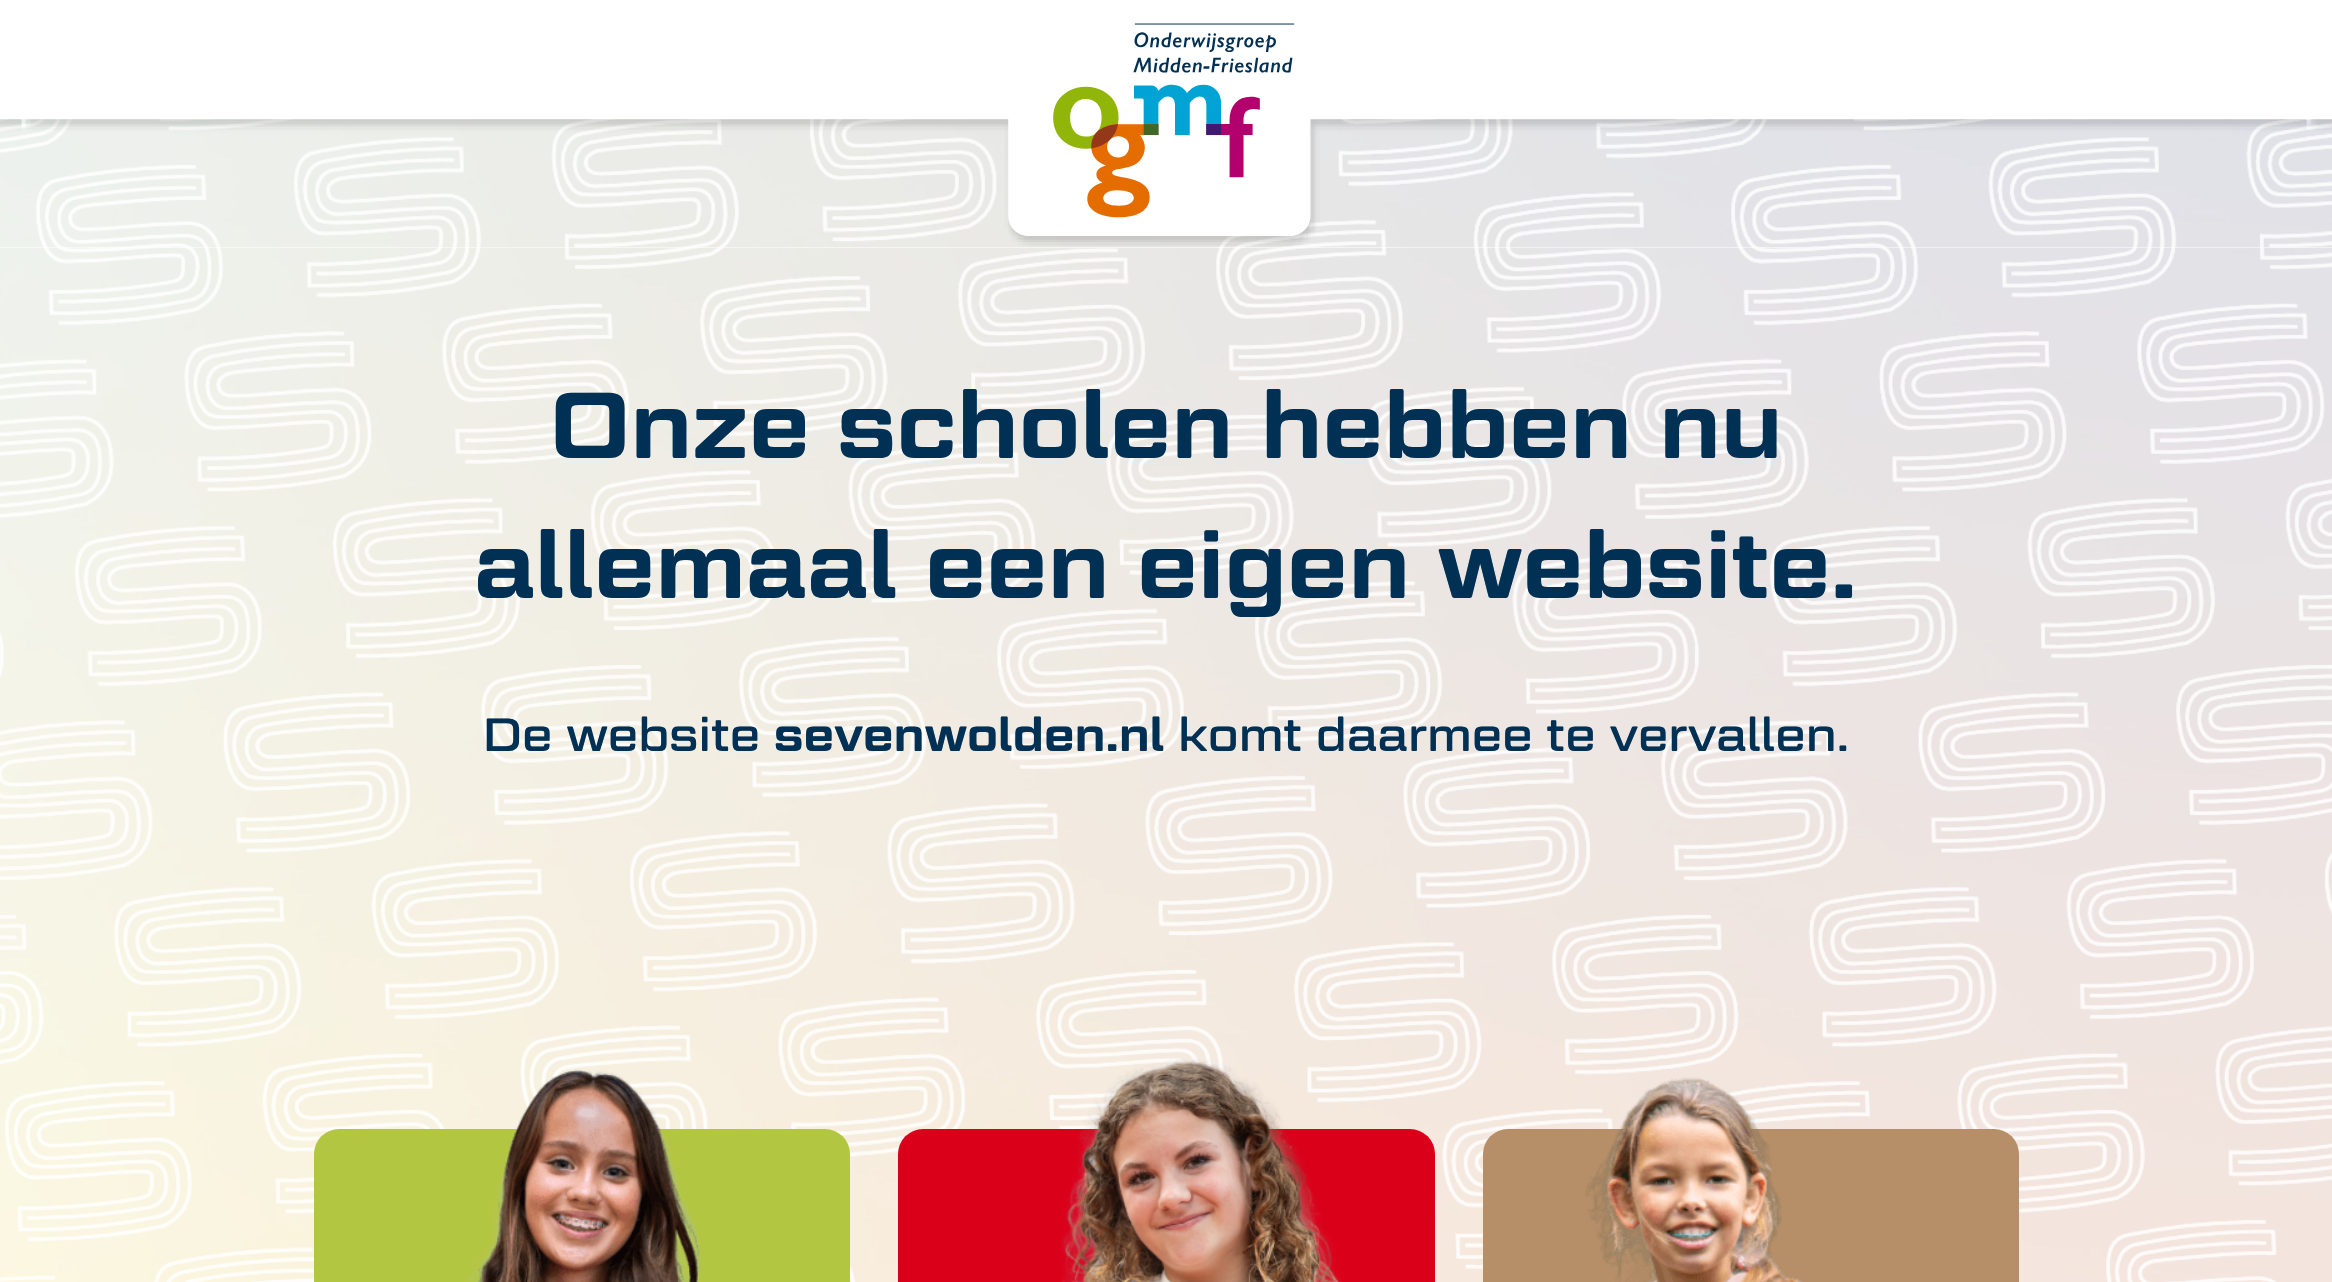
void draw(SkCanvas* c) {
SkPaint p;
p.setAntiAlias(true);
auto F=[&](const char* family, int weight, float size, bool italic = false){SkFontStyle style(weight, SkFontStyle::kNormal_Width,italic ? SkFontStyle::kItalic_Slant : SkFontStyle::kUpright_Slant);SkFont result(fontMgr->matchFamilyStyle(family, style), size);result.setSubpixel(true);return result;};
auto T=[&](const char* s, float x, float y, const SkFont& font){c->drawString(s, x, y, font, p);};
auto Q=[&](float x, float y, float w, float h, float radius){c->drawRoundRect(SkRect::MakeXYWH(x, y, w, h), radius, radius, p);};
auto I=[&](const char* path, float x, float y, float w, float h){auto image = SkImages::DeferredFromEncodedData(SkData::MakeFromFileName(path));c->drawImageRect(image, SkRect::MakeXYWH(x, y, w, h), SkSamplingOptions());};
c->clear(0xffffffff);
I("1.png",0,119,2332,1163);
I("3.png",0,119,2332,1163);
I("2.png",0,0,2332,248);
auto f1 = F("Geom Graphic",600,93.25);
p.setColor(0xff003054);
T("Onze scholen hebben nu",550,458,f1);
T("allemaal een eigen website.",474,598,f1);
auto f2 = F("Geom Graphic",400,46.6);
T("De website",483,751,f2);
auto f3 = F("Geom Graphic",600,46.6);
T("sevenwolden.nl",774,751,f3);
T("komt daarmee te vervallen.",1178,751,f2);
p.setColor(0xffb3c641);
Q(314,1129,536,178,25);
I("4.png",466,1069,236,213);
p.setColor(0xffdb001a);
Q(898,1129,537,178,25);
I("5.png",1060,1059,282,223);
p.setColor(0xffb68f68);
Q(1483,1129,536,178,25);
I("6.png",1585,1077,218,205);
}
